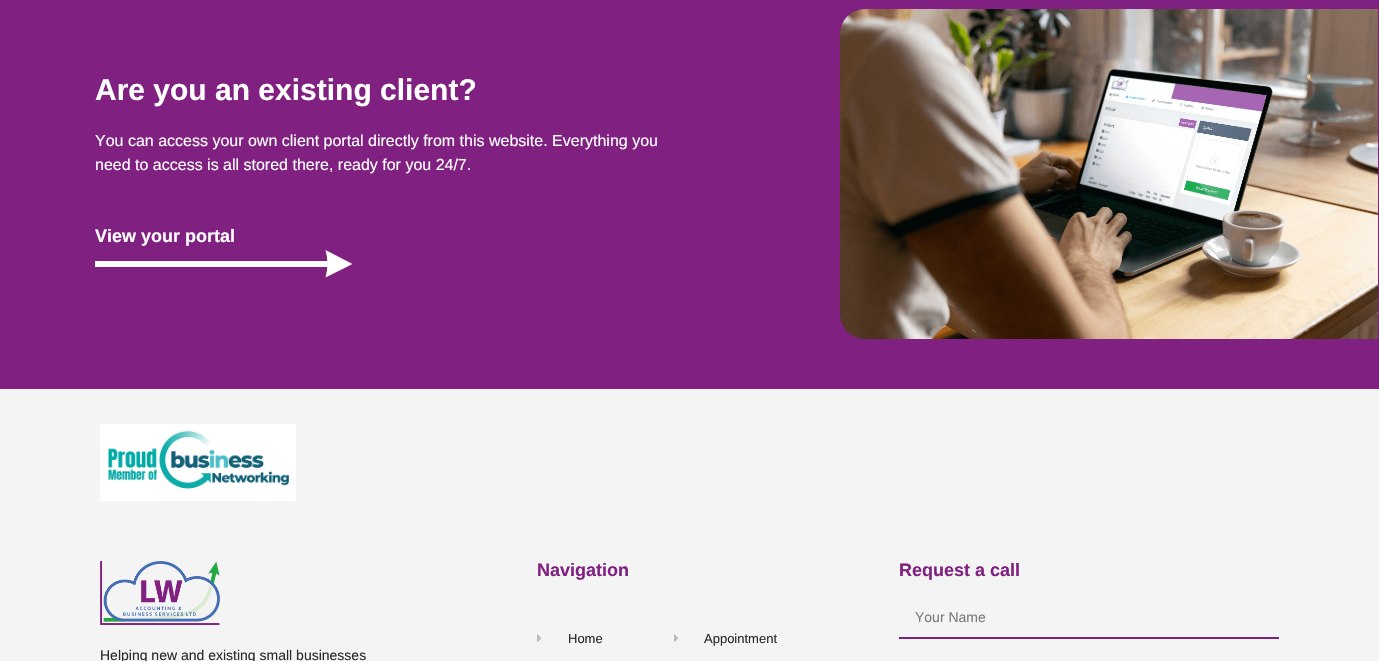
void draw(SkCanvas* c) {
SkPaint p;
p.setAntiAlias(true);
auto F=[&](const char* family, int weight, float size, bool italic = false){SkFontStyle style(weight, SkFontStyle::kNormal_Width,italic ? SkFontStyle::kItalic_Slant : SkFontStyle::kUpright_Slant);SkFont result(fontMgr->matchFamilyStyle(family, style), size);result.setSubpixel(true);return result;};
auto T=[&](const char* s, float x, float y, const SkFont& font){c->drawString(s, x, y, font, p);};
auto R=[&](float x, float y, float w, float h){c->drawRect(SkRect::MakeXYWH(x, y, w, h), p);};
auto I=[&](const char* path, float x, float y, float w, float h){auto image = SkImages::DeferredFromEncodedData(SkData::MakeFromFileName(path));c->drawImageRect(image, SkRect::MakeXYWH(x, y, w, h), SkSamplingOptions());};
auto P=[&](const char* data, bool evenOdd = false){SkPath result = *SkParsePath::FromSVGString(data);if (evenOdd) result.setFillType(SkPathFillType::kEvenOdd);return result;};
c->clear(0xff802080);
auto f1 = F("Liberation Sans",700,30);
p.setColor(0xffffffff);
T("Are you an existing client?",95,100,f1);
auto f2 = F("Liberation Sans",400,16);
T("You can access your own client portal directly from this website. Everything you",95,146,f2);
T("need to access is all stored there, ready for you 24/7.",95,170,f2);
auto f3 = F("Liberation Sans",700,18);
T("View your portal",95,242,f3);
R(95,261,236,6);
c->drawPath(P("M352.5 264l-27-14c2.5 9 2.5 18.5 0 27.5z"),p);
I("1.png",840,9,538,330);
p.setColor(0xfff4f4f4);
R(0,389,1379,272);
I("2.png",100,424,196,77);
p.setColor(0xff802080);
T("Navigation",537,576,f3);
I("3.png",537,634,5,8);
auto f4 = F("Liberation Sans",400,13);
p.setColor(0xff2b2a2a);
T("Home",568,643,f4);
I("3.png",674,634,5,8);
T("Appointment",704,643,f4);
p.setColor(0xff802080);
T("Request a call",899,576,f3);
R(899,637,380,2);
auto f5 = F("Liberation Sans",400,14);
p.setColor(0xff7b7b7b);
T("Your Name",915,622,f5);
I("4.png",100,561,120,64);
p.setColor(0xff2b2a2a);
T("Helping new and existing small businesses",100,660,f5);
}
